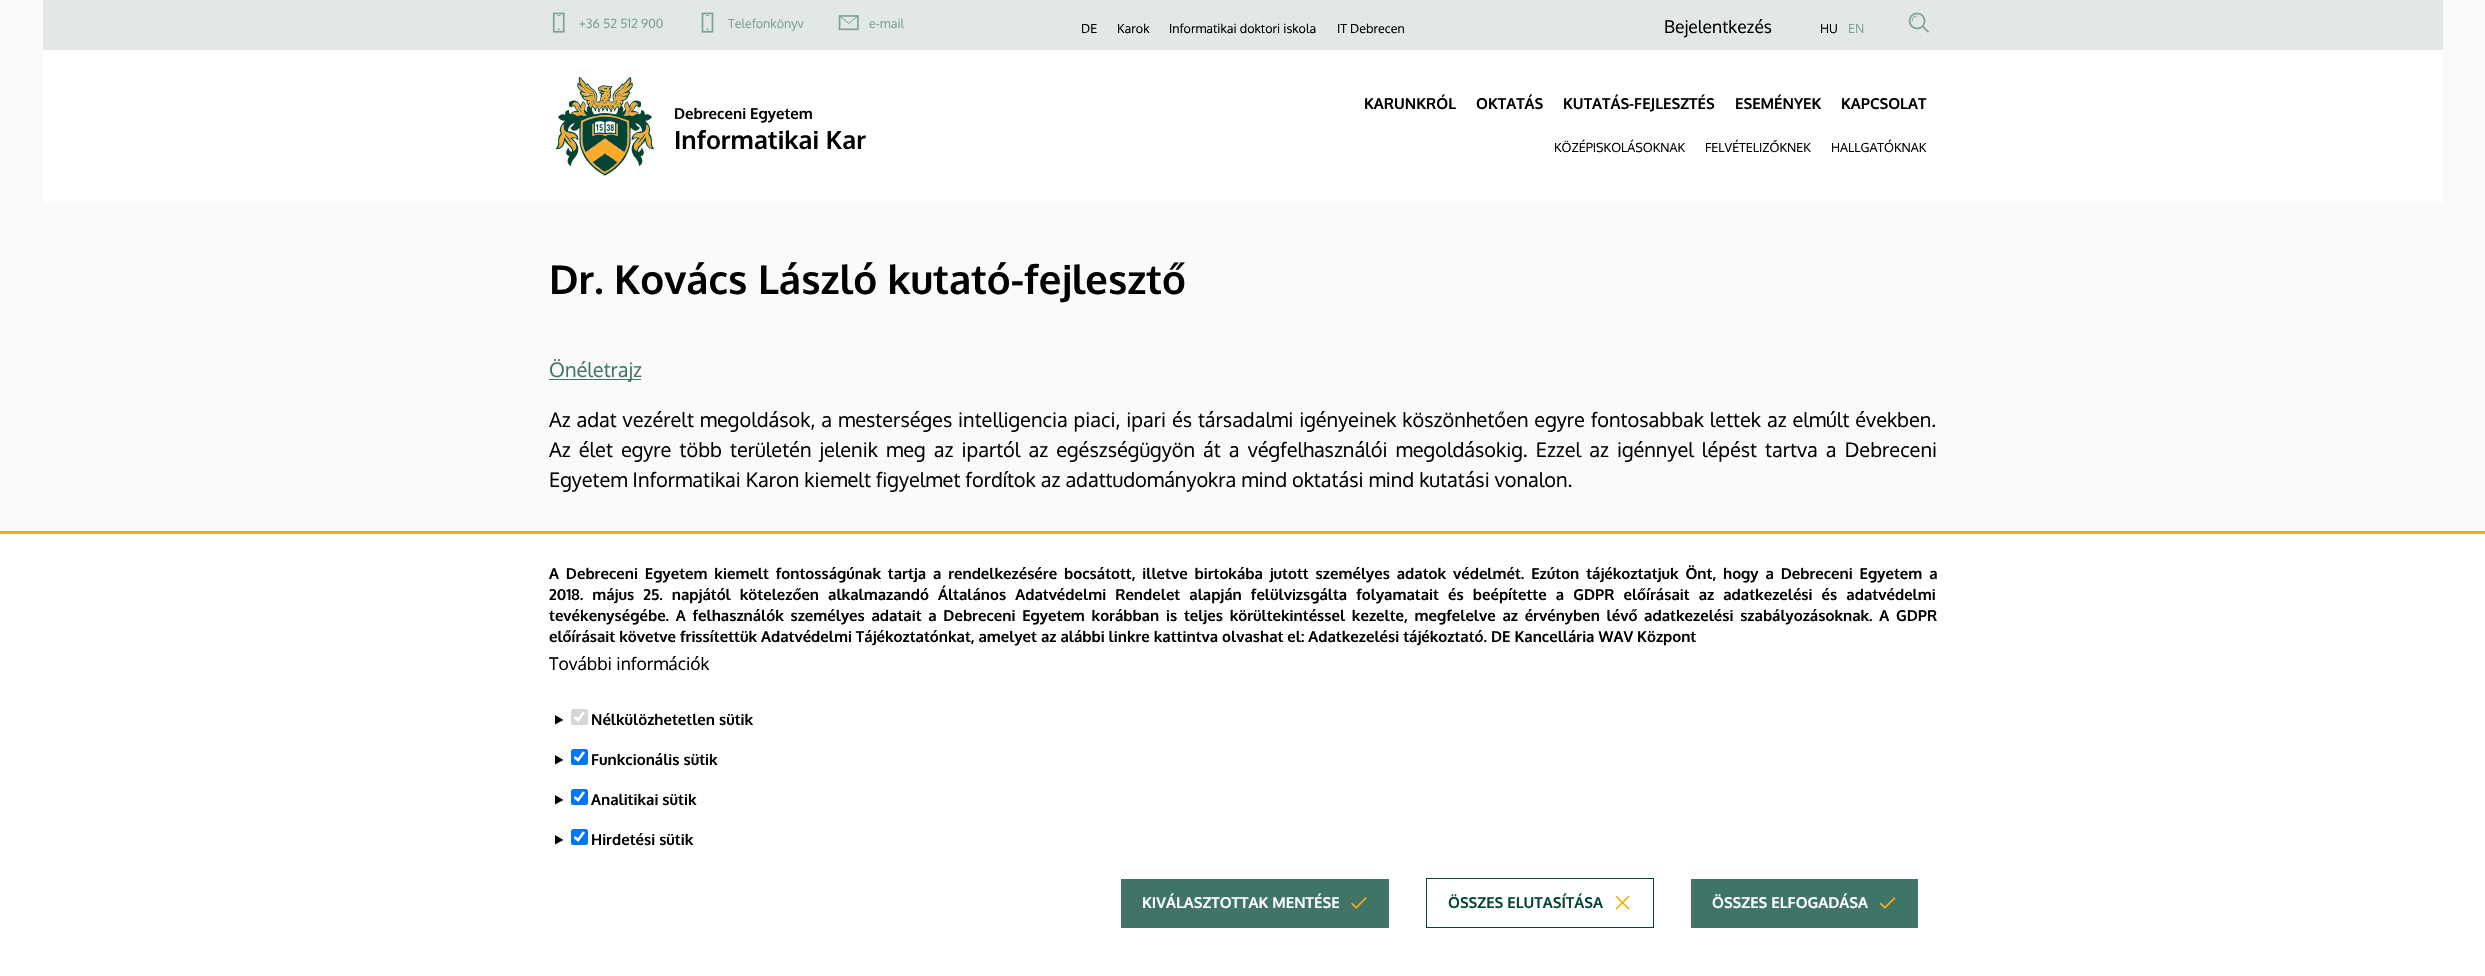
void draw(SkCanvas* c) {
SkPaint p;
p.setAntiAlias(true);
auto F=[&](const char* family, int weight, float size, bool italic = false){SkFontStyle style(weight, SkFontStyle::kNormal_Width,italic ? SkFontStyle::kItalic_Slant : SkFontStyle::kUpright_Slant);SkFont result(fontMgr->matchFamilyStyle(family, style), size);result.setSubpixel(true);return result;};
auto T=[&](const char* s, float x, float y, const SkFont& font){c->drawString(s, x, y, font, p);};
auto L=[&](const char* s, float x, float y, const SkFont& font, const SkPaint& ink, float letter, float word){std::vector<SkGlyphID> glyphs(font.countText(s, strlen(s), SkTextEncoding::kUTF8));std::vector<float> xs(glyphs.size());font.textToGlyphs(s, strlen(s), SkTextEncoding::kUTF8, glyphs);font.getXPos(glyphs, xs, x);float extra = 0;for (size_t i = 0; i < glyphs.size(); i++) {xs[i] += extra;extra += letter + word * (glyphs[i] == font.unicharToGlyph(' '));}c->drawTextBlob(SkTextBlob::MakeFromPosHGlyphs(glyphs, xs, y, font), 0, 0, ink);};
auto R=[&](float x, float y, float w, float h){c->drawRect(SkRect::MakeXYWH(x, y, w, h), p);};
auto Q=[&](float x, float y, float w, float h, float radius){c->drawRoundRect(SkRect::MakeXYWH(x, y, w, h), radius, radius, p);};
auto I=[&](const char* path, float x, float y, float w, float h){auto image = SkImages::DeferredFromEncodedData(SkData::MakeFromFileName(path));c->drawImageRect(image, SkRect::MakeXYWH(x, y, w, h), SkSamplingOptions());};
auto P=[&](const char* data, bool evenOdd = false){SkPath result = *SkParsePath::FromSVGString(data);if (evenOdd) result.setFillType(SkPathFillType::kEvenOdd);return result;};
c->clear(0xfffafafa);
p.setColor(0xffe1e8e6);
R(43,0,2400,50);
I("1.png",552,12,13,21);
auto f1 = F("Oxygen",400,12.5);
p.setColor(0xff7da198);
T("+36 52 512 900",579,28,f1);
I("2.png",701,12,13,21);
T("Telefonkönyv",728,28,f1);
I("3.png",838,15,21,16);
T("e-mail",869,28,f1);
p.setColor(0xff000000);
T("DE",1081,33,f1);
T("Karok",1117,33,f1);
T("Informatikai doktori iskola",1169,33,f1);
T("IT Debrecen",1337,33,f1);
auto f2 = F("Oxygen",400,17.5);
T("Bejelentkezés",1664,33,f2);
T("HU",1820,33,f1);
p.setColor(0xff7da198);
T("EN",1848,33,f1);
I("4.png",1908,12,21,21);
p.setColor(0xffffffff);
R(43,50,2400,153);
I("5.png",554,76,102,100);
auto f3 = F("Oxygen",700,15);
p.setColor(0xff000000);
T("Debreceni Egyetem",674,119,f3);
auto f4 = F("Oxygen",700,25);
T("Informatikai Kar",674,149,f4);
T("KARUNKRÓL",1364,109,f3);
T("OKTATÁS",1476,109,f3);
T("KUTATÁS-FEJLESZTÉS",1563,109,f3);
T("ESEMÉNYEK",1735,109,f3);
T("KAPCSOLAT",1841,109,f3);
T("KÖZÉPISKOLÁSOKNAK",1554,152,f1);
T("FELVÉTELIZŐKNEK",1705,152,f1);
T("HALLGATÓKNAK",1831,152,f1);
auto f5 = F("Oxygen",700,40);
T("Dr. Kovács László kutató-fejlesztő",549,294,f5);
p.setColor(0xff3f7467);
R(549,379,92,1);
auto f6 = F("Oxygen",400,20);
T("Önéletrajz",549,377,f6);
p.setColor(0xff000000);
L("Az adat vezérelt megoldások, a mesterséges intelligencia piaci, ipari és társadalmi igényeinek köszönhetően egyre fontosabbak lettek az elmúlt években.",549,427,f6,p,0,.9);
L("Az élet egyre több területén jelenik meg az ipartól az egészségügyön át a végfelhasználói megoldásokig. Ezzel az igénnyel lépést tartva a Debreceni",549,457,f6,p,0,3.1);
T("Egyetem Informatikai Karon kiemelt figyelmet fordítok az adattudományokra mind oktatási mind kutatási vonalon.",549,487,f6);
p.setColor(0xffffffff);
R(0,534,2485,442);
p.setColor(0xffffab0d);
R(0,531,2485,3);
p.setColor(0xff000000);
L("A Debreceni Egyetem kiemelt fontosságúnak tartja a rendelkezésére bocsátott, illetve birtokába jutott személyes adatok védelmét. Ezúton tájékoztatjuk Önt, hogy a Debreceni Egyetem a",549,579,f3,p,0,2.9);
L("2018. május 25. napjától kötelezően alkalmazandó Általános Adatvédelmi Rendelet alapján felülvizsgálta folyamatait és beépítette a GDPR előírásait az adatkezelési és adatvédelmi",549,600,f3,p,0,5.1);
L("tevékenységébe. A felhasználók személyes adatait a Debreceni Egyetem korábban is teljes körültekintéssel kezelte, megfelelve az érvényben lévő adatkezelési szabályozásoknak. A GDPR",549,621,f3,p,0,2.75);
T("előírásait követve frissítettük Adatvédelmi Tájékoztatónkat, amelyet az alábbi linkre kattintva olvashat el: Adatkezelési tájékoztató. DE Kancellária WAV Központ",549,642,f3);
T("További információk",549,670,f2);
c->drawPath(P("M555 715l8.5 5l-8.5 4.5z"),p);
p.setColor(0xffd6d6d6);
Q(571,709,17,16,2.5);
p.setStroke(true);
p.setStrokeWidth(2.6);
p.setColor(0xffffffff);
c->drawPath(P("M574.5 717l3.5 3l6-8"),p);
p.setStroke(false);
p.setColor(0xff000000);
T("Nélkülözhetetlen sütik",591,725,f3);
c->drawPath(P("M555 755l8.5 5l-8.5 4.5z"),p);
p.setColor(0xff0075ff);
Q(571,749,17,16,2.5);
p.setStroke(true);
p.setColor(0xffffffff);
c->drawPath(P("M574.5 757l3.5 3l6-8"),p);
p.setStroke(false);
p.setColor(0xff000000);
T("Funkcionális sütik",591,765,f3);
c->drawPath(P("M555 795l8.5 5l-8.5 4.5z"),p);
p.setColor(0xff0075ff);
Q(571,789,17,16,2.5);
p.setStroke(true);
p.setColor(0xffffffff);
c->drawPath(P("M574.5 797l3.5 3l6-8"),p);
p.setStroke(false);
p.setColor(0xff000000);
T("Analitikai sütik",591,805,f3);
c->drawPath(P("M555 835l8.5 5l-8.5 4.5z"),p);
p.setColor(0xff0075ff);
Q(571,829,17,16,2.5);
p.setStroke(true);
p.setColor(0xffffffff);
c->drawPath(P("M574.5 837l3.5 3l6-8"),p);
p.setStroke(false);
p.setColor(0xff000000);
T("Hirdetési sütik",591,845,f3);
p.setColor(0xff3f7467);
R(1121,879,268,49);
p.setColor(0xffffffff);
T("KIVÁLASZTOTTAK MENTÉSE",1142,908,f3);
I("6.png",1351,897,16,12);
p.setStroke(true);
p.setStrokeWidth(1);
p.setColor(0xff004735);
c->drawRect(SkRect::MakeXYWH(1426.5,878.5,227,49),p);
p.setStroke(false);
T("ÖSSZES ELUTASÍTÁSA",1448,908,f3);
I("7.png",1615,895,15,15);
p.setColor(0xff3f7467);
R(1691,879,227,49);
p.setColor(0xffffffff);
T("ÖSSZES ELFOGADÁSA",1712,908,f3);
I("8.png",1879,897,17,12);
}
